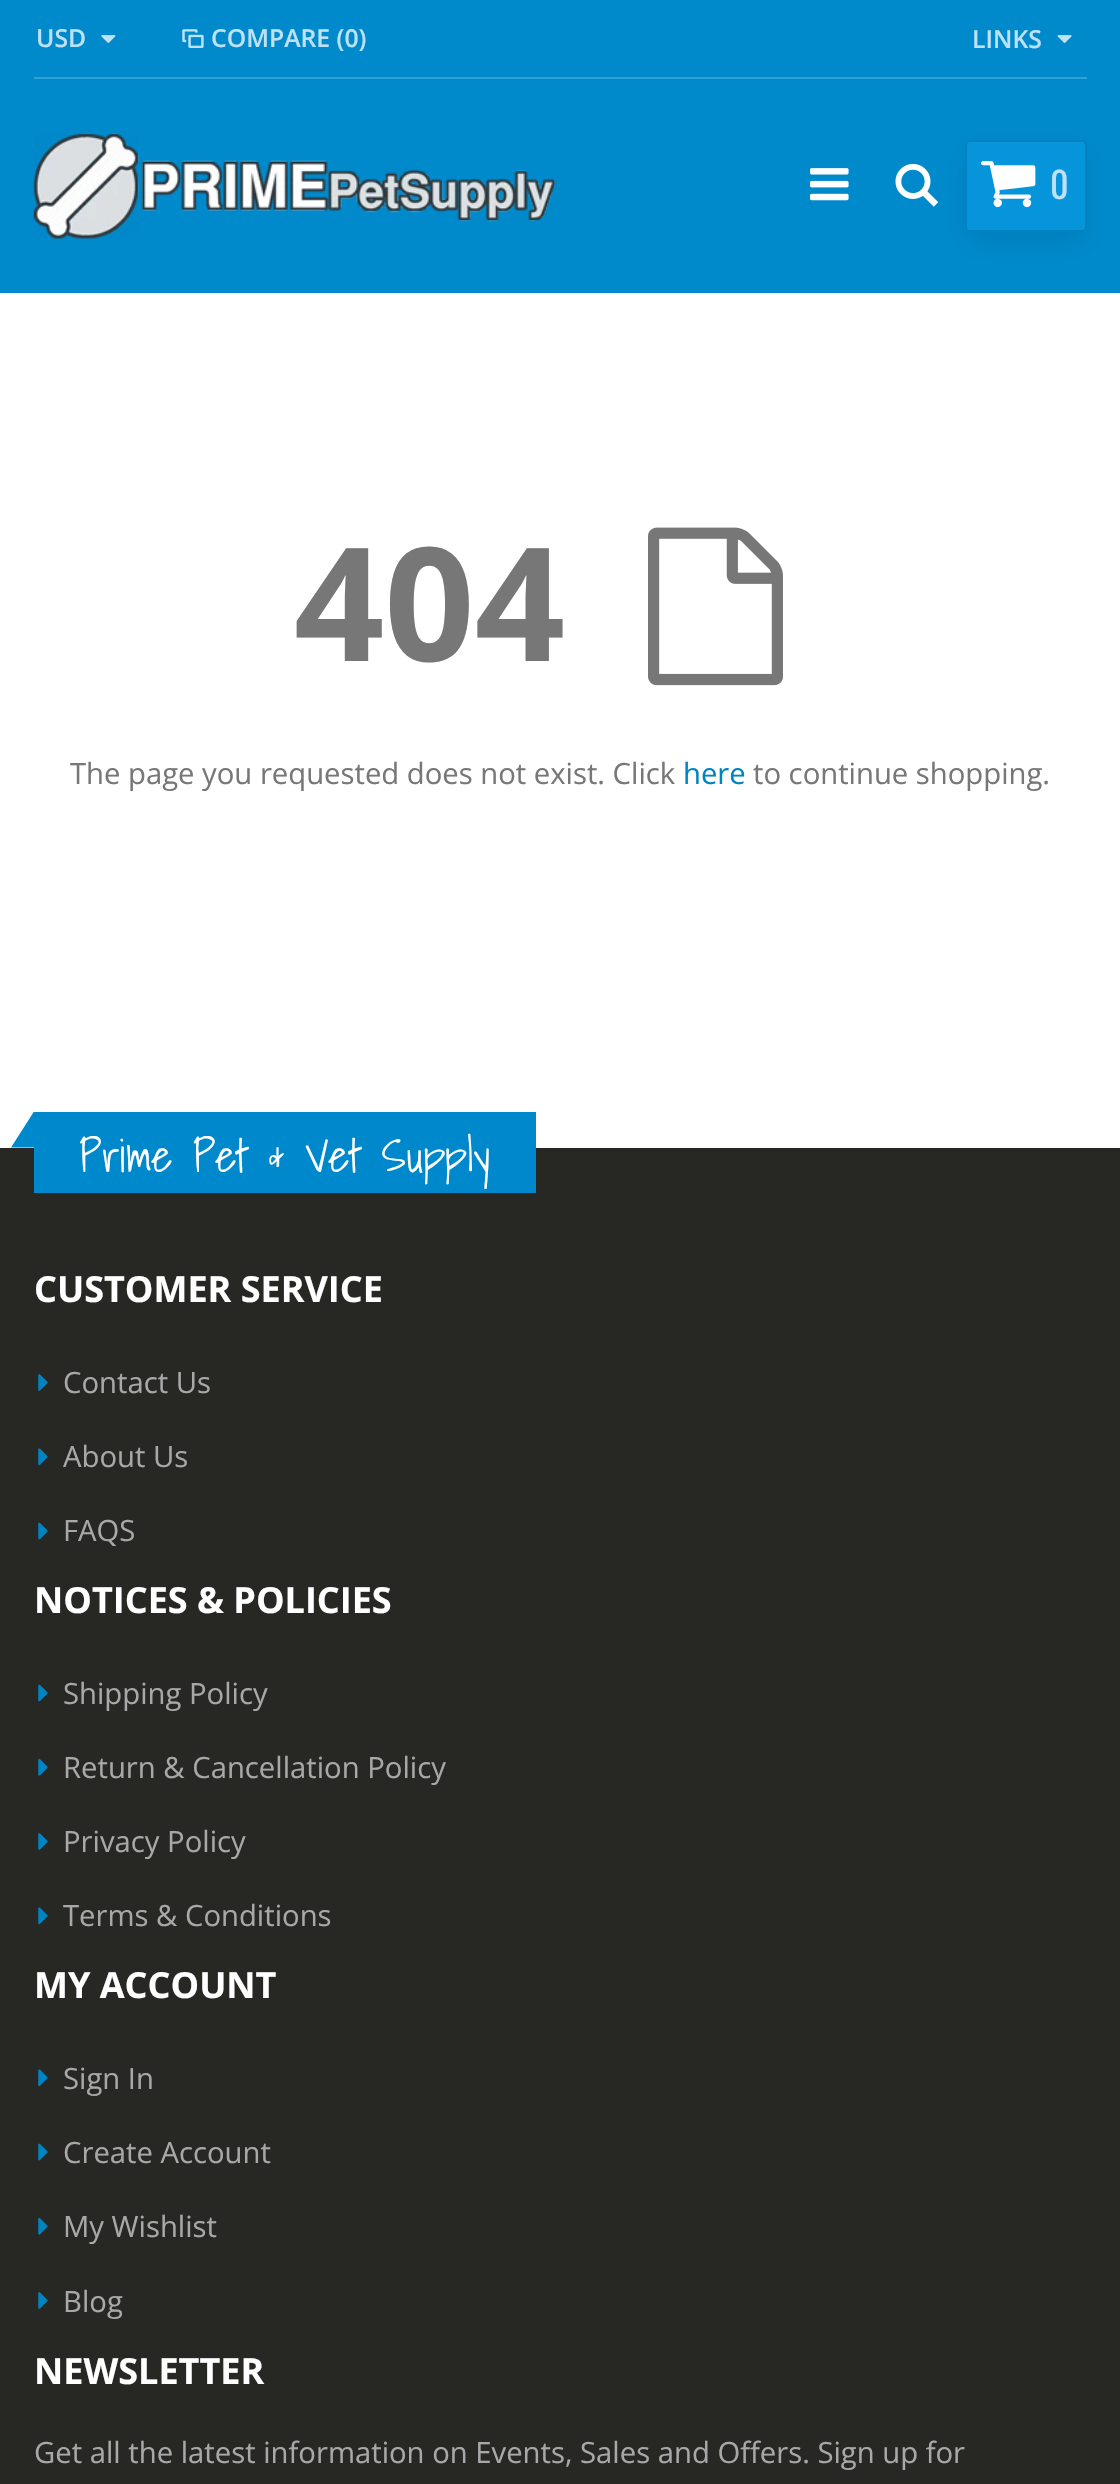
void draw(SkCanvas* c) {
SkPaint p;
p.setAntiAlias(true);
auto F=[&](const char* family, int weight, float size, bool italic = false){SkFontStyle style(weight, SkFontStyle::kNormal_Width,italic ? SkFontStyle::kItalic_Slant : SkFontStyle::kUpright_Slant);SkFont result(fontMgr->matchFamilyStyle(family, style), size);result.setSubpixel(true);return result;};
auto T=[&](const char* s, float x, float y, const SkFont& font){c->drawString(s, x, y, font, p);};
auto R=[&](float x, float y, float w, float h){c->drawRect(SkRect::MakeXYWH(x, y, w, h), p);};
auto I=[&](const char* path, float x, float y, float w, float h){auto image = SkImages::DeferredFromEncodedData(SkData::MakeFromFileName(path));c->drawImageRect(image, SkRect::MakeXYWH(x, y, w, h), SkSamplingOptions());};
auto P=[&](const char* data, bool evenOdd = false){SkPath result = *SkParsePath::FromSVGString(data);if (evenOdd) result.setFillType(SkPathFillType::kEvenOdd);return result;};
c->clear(0xffffffff);
p.setColor(0xff008acc);
R(0,0,1120,293);
p.setColor(0xff32a0d5);
R(34,77,1053,2);
auto f1 = F("Open Sans",600,24.75);
p.setColor(0xffbde1f5);
T("USD",36,47,f1);
I("1.png",101,35,15,8);
I("2.png",182,29,22,19);
T("COMPARE (0)",211,47,f1);
T("LINKS",972,48,f1);
I("3.png",1057,35,15,8);
I("4.png",33,132,523,107);
I("5.png",810,168,39,33);
p.setColor(0x1a000000);
p.setMaskFilter(SkMaskFilter::MakeBlur(kNormal_SkBlurStyle, 12.5));
c->drawRect(SkRect::MakeXYWH(970,155,112,84),p);
p.setMaskFilter(nullptr);
I("6.png",895,164,44,43);
p.setColor(0xff0694db);
c->drawRoundRect(SkRect::MakeXYWH(966,141,120,90),4,4,p);
p.setStroke(true);
p.setStrokeWidth(2);
p.setColor(0xff0082c2);
c->drawRoundRect(SkRect::MakeXYWH(966,141,120,90),4,4,p);
I("7.png",981,161,55,47);
auto f2 = F("Oswald",400,36);
p.setStroke(false);
p.setColor(0xffbde1f5);
T("0",1050,199,f2);
auto f3 = F("Open Sans",700,158);
p.setColor(0xff777777);
T("404",294,661,f3);
I("8.png",648,527,135,159);
auto f4 = F("Open Sans",400,29.25);
T("The page you requested does not exist. Click",70,784,f4);
p.setColor(0xff0083c1);
T("here",683,784,f4);
p.setColor(0xff777777);
T("to continue shopping.",753,784,f4);
p.setColor(0xff272723);
R(0,1148,1120,1336);
p.setColor(0xff0088cc);
R(34,1112,502,81);
c->drawPath(P("M34 1111.5v36h-23z"),p);
auto f5 = F("Shadows Into Light",300,45);
p.setColor(0xffffffff);
T("Prime Pet & Vet Supply",79,1172,f5);
auto f6 = F("Open Sans",700,36);
T("CUSTOMER SERVICE",34,1302,f6);
I("9.png",38,1374,10,17);
p.setColor(0xffa8a8a8);
T("Contact Us",63,1393,f4);
I("10.png",38,1448,10,18);
T("About Us",63,1467,f4);
I("11.png",38,1522,10,18);
T("FAQS",63,1541,f4);
p.setColor(0xffffffff);
T("NOTICES & POLICIES",34,1613,f6);
I("11.png",38,1684,10,18);
p.setColor(0xffa8a8a8);
T("Shipping Policy",63,1704,f4);
I("12.png",38,1758,10,18);
T("Return & Cancellation Policy",63,1778,f4);
I("9.png",38,1833,10,17);
T("Privacy Policy",63,1852,f4);
I("10.png",38,1907,10,18);
T("Terms & Conditions",63,1926,f4);
p.setColor(0xffffffff);
T("MY ACCOUNT",34,1998,f6);
I("10.png",38,2069,10,18);
p.setColor(0xffa8a8a8);
T("Sign In",63,2089,f4);
I("11.png",38,2143,10,18);
T("Create Account",63,2163,f4);
I("12.png",38,2217,10,18);
T("My Wishlist",63,2237,f4);
I("9.png",38,2292,10,17);
T("Blog",63,2312,f4);
p.setColor(0xffffffff);
T("NEWSLETTER",34,2384,f6);
p.setColor(0xffa8a8a8);
T("Get all the latest information on Events, Sales and Offers. Sign up for",34,2463,f4);
}
